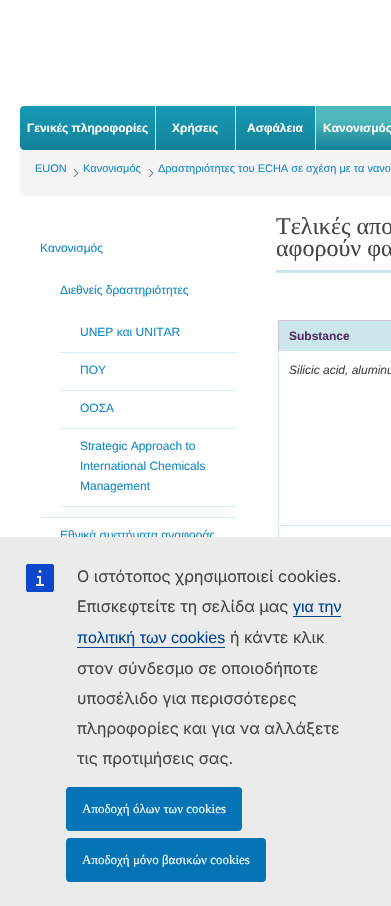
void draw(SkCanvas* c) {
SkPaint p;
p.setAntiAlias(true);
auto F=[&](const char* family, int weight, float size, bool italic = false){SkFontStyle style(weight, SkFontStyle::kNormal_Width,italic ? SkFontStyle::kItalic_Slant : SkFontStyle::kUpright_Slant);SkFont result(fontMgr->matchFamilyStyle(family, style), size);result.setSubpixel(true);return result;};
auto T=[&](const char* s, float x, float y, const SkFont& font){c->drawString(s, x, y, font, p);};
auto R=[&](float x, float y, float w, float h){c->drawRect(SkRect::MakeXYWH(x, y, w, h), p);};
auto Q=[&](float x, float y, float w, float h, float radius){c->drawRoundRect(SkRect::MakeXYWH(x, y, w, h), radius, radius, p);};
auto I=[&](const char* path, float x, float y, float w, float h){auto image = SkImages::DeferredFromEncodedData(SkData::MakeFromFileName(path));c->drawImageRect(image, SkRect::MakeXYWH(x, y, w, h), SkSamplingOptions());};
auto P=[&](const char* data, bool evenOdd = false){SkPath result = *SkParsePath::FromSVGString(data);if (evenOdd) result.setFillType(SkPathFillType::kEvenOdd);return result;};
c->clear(0xffffffff);
{
const SkColor colors[] = {0xff179ab5,0xff138299};
const float stops[] = {0,1};
const SkPoint ends[] = {{88,106}, {88,150}};
p.setShader(SkGradientShader::MakeLinear(ends, colors, stops, 2, SkTileMode::kClamp));
p.setAlpha(255);
}
c->drawPath(P("M24 106h132v44h-132c-2 0-4-2-4-4v-36c0-2 2-4 4-4z"),p);
p.setShader(nullptr);
p.setColor(0xffcbe9ef);
R(155,106,1,44);
auto f1 = F("Liberation Sans",700,12);
p.setColor(0xffffffff);
T("Γενικές πληροφορίες",27,132,f1);
{
const SkColor colors[] = {0xff179ab5,0xff138299};
const float stops[] = {0,1};
const SkPoint ends[] = {{196,106}, {196,150}};
p.setShader(SkGradientShader::MakeLinear(ends, colors, stops, 2, SkTileMode::kClamp));
p.setAlpha(255);
}
R(156,106,79,44);
p.setShader(nullptr);
p.setColor(0xffcbe9ef);
R(235,106,1,44);
p.setColor(0xffffffff);
T("Χρήσεις",172,132,f1);
{
const SkColor colors[] = {0xff179ab5,0xff138299};
const float stops[] = {0,1};
const SkPoint ends[] = {{276,106}, {276,150}};
p.setShader(SkGradientShader::MakeLinear(ends, colors, stops, 2, SkTileMode::kClamp));
p.setAlpha(255);
}
R(236,106,79,44);
p.setShader(nullptr);
p.setColor(0xffcbe9ef);
R(315,106,1,44);
p.setColor(0xffffffff);
T("Ασφάλεια",247,132,f1);
{
const SkColor colors[] = {0xff4fb9bc,0xff4fb9bc,0xff138299};
const float stops[] = {.25,.3,.99};
const SkPoint ends[] = {{358,106}, {358,150}};
p.setShader(SkGradientShader::MakeLinear(ends, colors, stops, 3, SkTileMode::kClamp));
p.setAlpha(255);
}
R(316,106,75,44);
p.setShader(nullptr);
p.setColor(0xffffffff);
T("Κανονισμός",323,132,f1);
p.setColor(0xfff5f5f5);
Q(20,150,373,46,2);
auto f2 = F("Liberation Sans",400,11);
p.setColor(0xff1189cc);
T("EUON",35,172,f2);
I("1.png",73,169,6,8);
T("Κανονισμός",83,172,f2);
I("1.png",148,169,6,8);
T("Δραστηριότητες του ECHA σε σχέση με τα νανο",158,172,f2);
auto f3 = F("Liberation Sans",400,12);
T("Κανονισμός",40,252,f3);
p.setColor(0xffd7effa);
R(40,517,196,1);
p.setColor(0xff1189cc);
T("Διεθνείς δραστηριότητες",60,294,f3);
p.setColor(0xffd7effa);
R(60,352,176,1);
p.setColor(0xff1189cc);
T("UNEP και UNITAR",80,336,f3);
p.setColor(0xffd7effa);
R(60,390,176,1);
p.setColor(0xff1189cc);
T("ΠΟΥ",80,374,f3);
p.setColor(0xffd7effa);
R(60,428,176,1);
p.setColor(0xff1189cc);
T("ΟΟΣΑ",80,412,f3);
p.setColor(0xffd7effa);
R(60,506,176,1);
p.setColor(0xff1189cc);
T("Strategic Approach to",80,450,f3);
T("International Chemicals",80,470,f3);
T("Management",80,490,f3);
T("Εθνικά συστήματα αναφοράς",60,539,f3);
p.setColor(0xffcce7ec);
R(276,270,115,3);
auto f4 = F("Liberation Serif",400,24);
p.setColor(0xff444345);
T("Τελικές απο",276,234,f4);
T("αφορούν φα",276,256,f4);
p.setColor(0xffcce7ec);
R(279,321,112,30);
p.setColor(0xffd2c2d9);
R(278,320,113,1);
R(278,320,1,32);
p.setColor(0xff542d66);
T("Substance",289,340,f1);
p.setColor(0xffcce7ec);
R(278,525,113,1);
R(278,354,1,172);
auto f5 = F("Liberation Sans",400,12,true);
p.setColor(0xff444345);
T("Silicic acid, aluminu",289,374,f5);
p.setColor(0xffcce7ec);
R(278,528,1,9);
p.setColor(0xffebebeb);
R(0,537,391,369);
I("2.png",26,564,28,28);
auto f6 = F("Inter",400,16);
p.setColor(0xff444345);
T("Ο ιστότοπος χρησιμοποιεί cookies.",77,582,f6);
T("Επισκεφτείτε τη σελίδα μας",77,612,f6);
auto f7 = F("Liberation Sans",400,16);
p.setColor(0xff004494);
T("για την",293,612,f7);
R(293,616,48,1);
T("πολιτική των cookies",77,643,f7);
R(77,647,148,1);
p.setColor(0xff444345);
T("ή κάντε κλικ",230,643,f6);
T("στον σύνδεσμο σε οποιοδήποτε",77,674,f6);
T("υποσέλιδο για περισσότερες",77,704,f6);
T("πληροφορίες και για να αλλάξετε",77,734,f6);
T("τις προτιμήσεις σας.",77,764,f6);
p.setColor(0xff0374b6);
Q(66,787,176,44,4);
auto f8 = F("Liberation Serif",400,13);
p.setColor(0xffffffff);
T("Αποδοχή όλων των cookies",82,813,f8);
p.setColor(0xff0374b6);
Q(66,838,200,44,4);
p.setColor(0xffffffff);
T("Αποδοχή μόνο βασικών cookies",82,864,f8);
}
